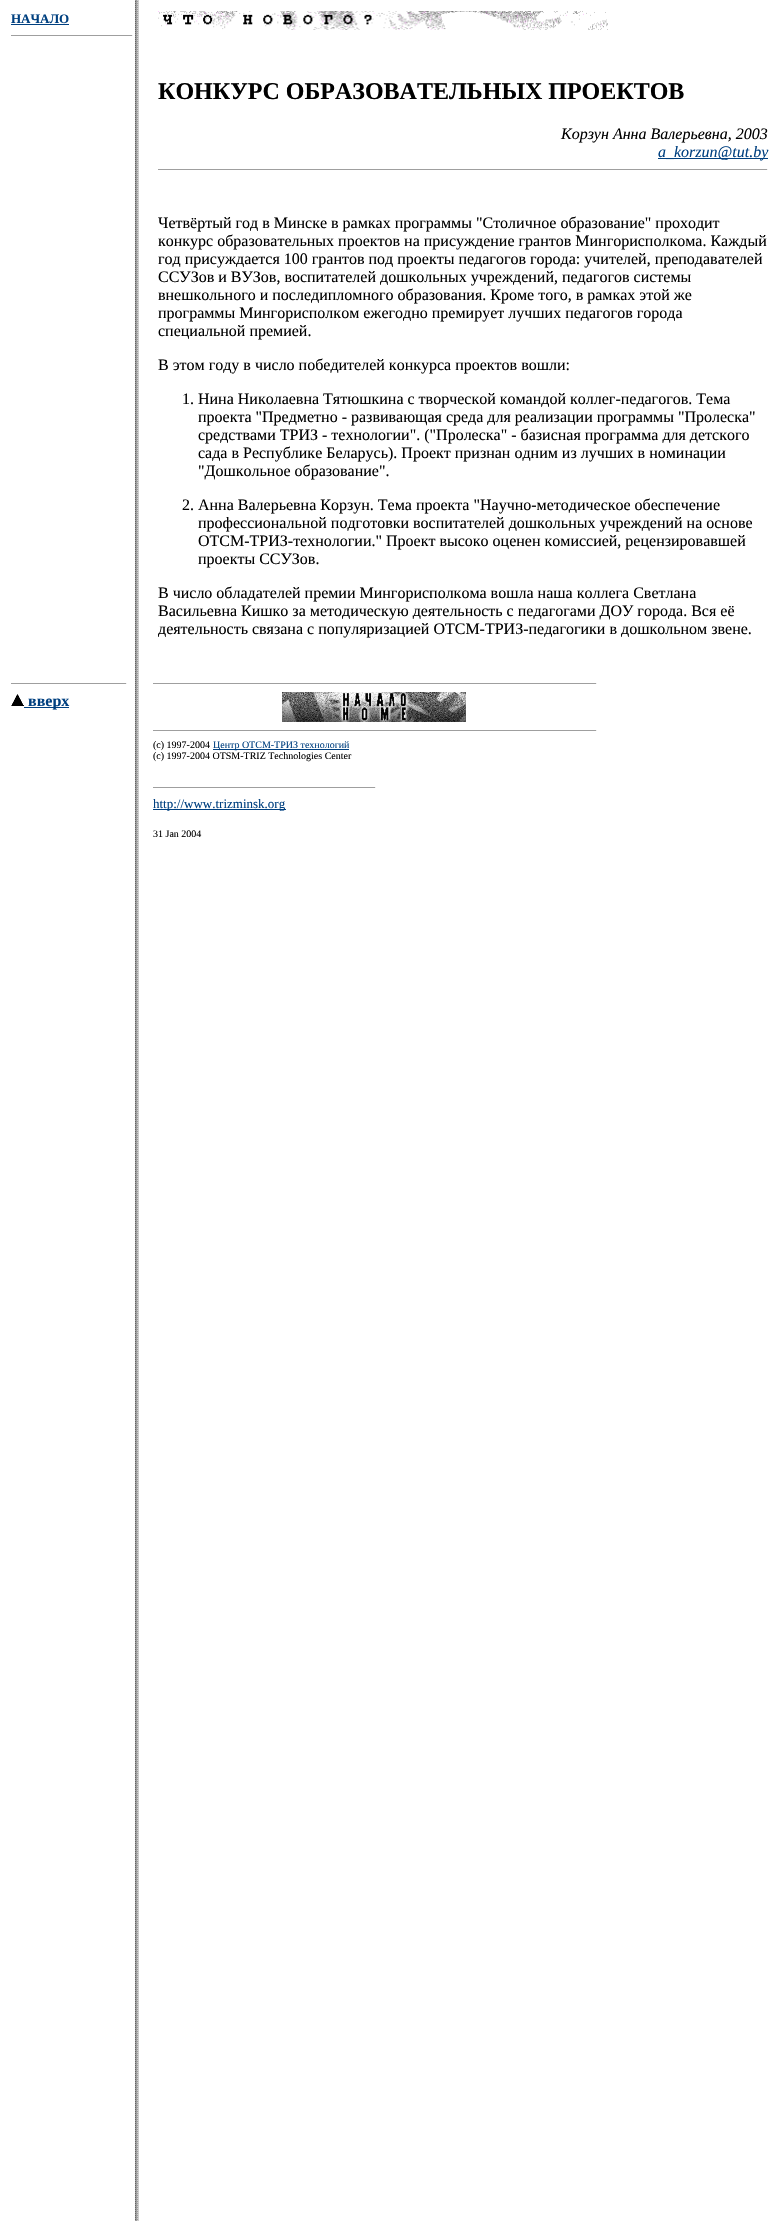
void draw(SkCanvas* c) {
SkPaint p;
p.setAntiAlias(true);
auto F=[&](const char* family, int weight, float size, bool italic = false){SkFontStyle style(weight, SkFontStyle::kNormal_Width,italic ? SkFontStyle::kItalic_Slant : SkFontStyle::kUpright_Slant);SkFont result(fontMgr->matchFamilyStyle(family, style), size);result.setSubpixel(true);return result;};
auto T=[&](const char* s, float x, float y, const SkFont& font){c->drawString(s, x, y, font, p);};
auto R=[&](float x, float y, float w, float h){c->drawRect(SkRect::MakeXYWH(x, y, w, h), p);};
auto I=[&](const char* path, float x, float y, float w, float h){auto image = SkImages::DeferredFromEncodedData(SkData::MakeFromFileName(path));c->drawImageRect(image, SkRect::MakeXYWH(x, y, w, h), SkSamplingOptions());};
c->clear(0xffffffff);
I("1.png",135,0,4,2221);
auto f1 = F("Liberation Serif",700,13);
p.setColor(0xff004080);
T("НАЧАЛО",11,23,f1);
R(11,24,58,1);
p.setColor(0xff9f9f9f);
R(11,35,122,1);
p.setColor(0xffeeeeee);
R(132,35,1,1);
I("2.png",158,11,450,19);
auto f2 = F("Liberation Serif",700,24);
p.setColor(0xff000000);
T("КОНКУРС ОБРАЗОВАТЕЛЬНЫХ ПРОЕКТОВ",158,99,f2);
auto f3 = F("Liberation Serif",400,16,true);
T("Корзун Анна Валерьевна, 2003",561,139,f3);
p.setColor(0xff004080);
R(658,158,110,1);
T("a_korzun@tut.by",658,157,f3);
p.setColor(0xff9f9f9f);
R(158,169,610,1);
p.setColor(0xffeeeeee);
R(767,169,1,1);
auto f4 = F("Liberation Serif",400,16);
p.setColor(0xff000000);
T("Четвёртый год в Минске в рамках программы \"Столичное образование\" проходит",158,228,f4);
T("конкурс образовательных проектов на присуждение грантов Мингорисполкома. Каждый",158,246,f4);
T("год присуждается 100 грантов под проекты педагогов города: учителей, преподавателей",158,264,f4);
T("ССУЗов и ВУЗов, воспитателей дошкольных учреждений, педагогов системы",158,282,f4);
T("внешкольного и последипломного образования. Кроме того, в рамках этой же",158,300,f4);
T("программы Мингорисполком ежегодно премирует лучших педагогов города",158,318,f4);
T("специальной премией.",158,336,f4);
T("В этом году в число победителей конкурса проектов вошли:",158,370,f4);
T("1. Нина Николаевна Тятюшкина с творческой командой коллег-педагогов. Тема",182,404,f4);
T("проекта \"Предметно - развивающая среда для реализации программы \"Пролеска\"",198,422,f4);
T("средствами ТРИЗ - технологии\". (\"Пролеска\" - базисная программа для детского",198,440,f4);
T("сада в Республике Беларусь). Проект признан одним из лучших в номинации",198,458,f4);
T("\"Дошкольное образование\".",198,476,f4);
T("2. Анна Валерьевна Корзун. Тема проекта \"Научно-методическое обеспечение",182,510,f4);
T("профессиональной подготовки воспитателей дошкольных учреждений на основе",198,528,f4);
T("ОТСМ-ТРИЗ-технологии.\" Проект высоко оценен комиссией, рецензировавшей",198,546,f4);
T("проекты ССУЗов.",198,564,f4);
T("В число обладателей премии Мингорисполкома вошла наша коллега Светлана",158,598,f4);
T("Васильевна Кишко за методическую деятельность с педагогами ДОУ города. Вся её",158,616,f4);
T("деятельность связана с популяризацией ОТСМ-ТРИЗ-педагогики в дошкольном звене.",158,634,f4);
p.setColor(0xff9f9f9f);
R(11,683,116,1);
p.setColor(0xffeeeeee);
R(126,683,1,1);
I("3.png",11,694,13,12);
p.setColor(0xff004080);
R(24,707,45,1);
auto f5 = F("Liberation Serif",700,16);
T("вверх",28,706,f5);
p.setColor(0xff9f9f9f);
R(153,683,444,1);
p.setColor(0xffeeeeee);
R(596,683,1,1);
I("4.png",282,692,184,30);
p.setColor(0xff9f9f9f);
R(153,730,444,1);
p.setColor(0xffeeeeee);
R(596,730,1,1);
auto f6 = F("Liberation Serif",400,10);
p.setColor(0xff000000);
T("(c) 1997-2004",153,748,f6);
p.setColor(0xff004080);
R(213,749,136,1);
T("Центр ОТСМ-ТРИЗ технологий",213,748,f6);
p.setColor(0xff000000);
T("(с) 1997-2004 OTSM-TRIZ Technologies Center",153,759,f6);
p.setColor(0xff9f9f9f);
R(153,787,223,1);
p.setColor(0xffeeeeee);
R(375,787,1,1);
p.setColor(0xff004080);
R(153,809,133,1);
auto f7 = F("Liberation Serif",400,13);
T("http://www.trizminsk.org",153,808,f7);
p.setColor(0xff000000);
T("31 Jan 2004",153,837,f6);
}
